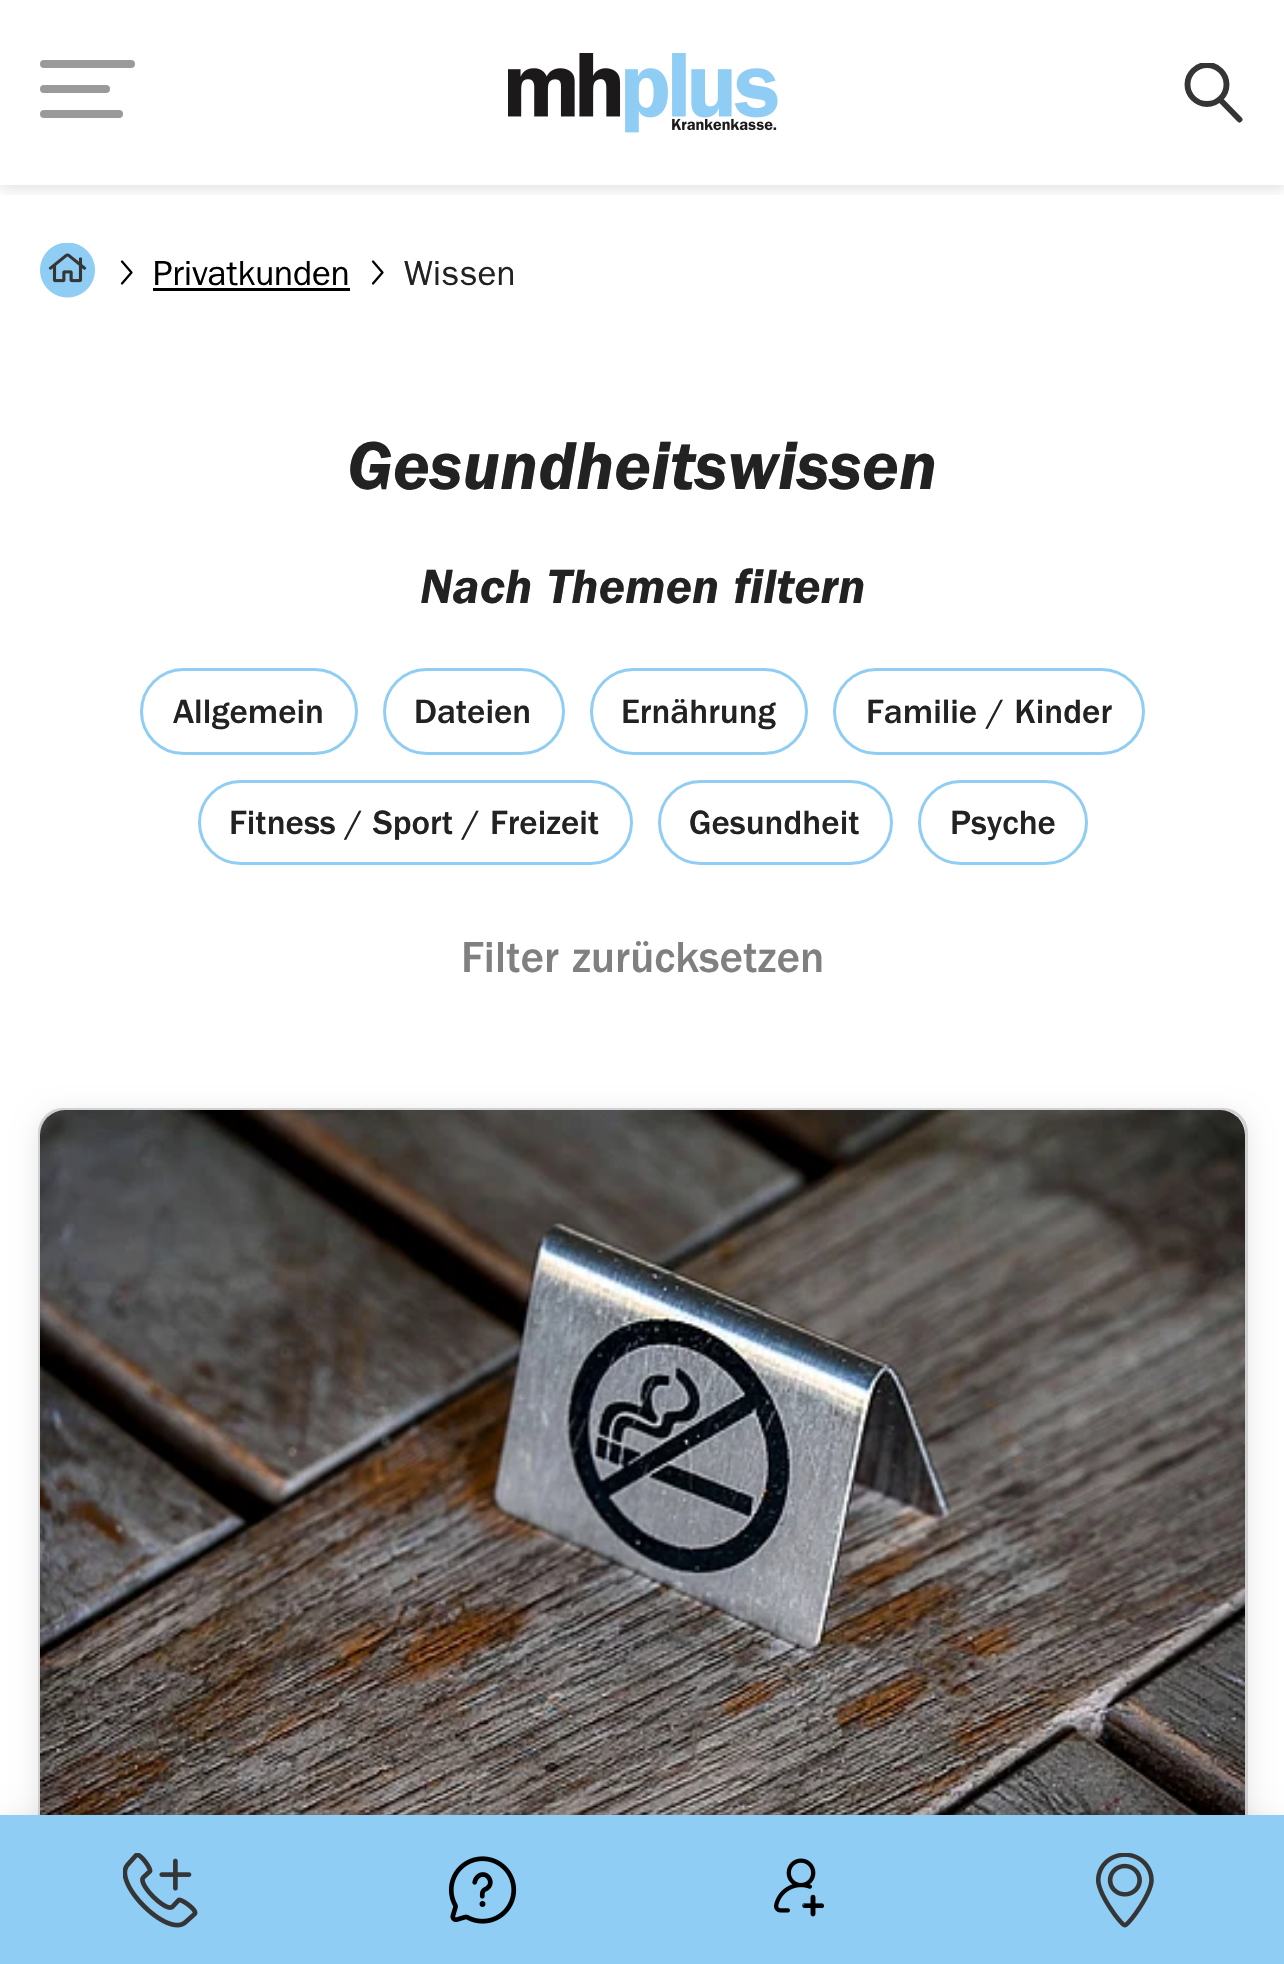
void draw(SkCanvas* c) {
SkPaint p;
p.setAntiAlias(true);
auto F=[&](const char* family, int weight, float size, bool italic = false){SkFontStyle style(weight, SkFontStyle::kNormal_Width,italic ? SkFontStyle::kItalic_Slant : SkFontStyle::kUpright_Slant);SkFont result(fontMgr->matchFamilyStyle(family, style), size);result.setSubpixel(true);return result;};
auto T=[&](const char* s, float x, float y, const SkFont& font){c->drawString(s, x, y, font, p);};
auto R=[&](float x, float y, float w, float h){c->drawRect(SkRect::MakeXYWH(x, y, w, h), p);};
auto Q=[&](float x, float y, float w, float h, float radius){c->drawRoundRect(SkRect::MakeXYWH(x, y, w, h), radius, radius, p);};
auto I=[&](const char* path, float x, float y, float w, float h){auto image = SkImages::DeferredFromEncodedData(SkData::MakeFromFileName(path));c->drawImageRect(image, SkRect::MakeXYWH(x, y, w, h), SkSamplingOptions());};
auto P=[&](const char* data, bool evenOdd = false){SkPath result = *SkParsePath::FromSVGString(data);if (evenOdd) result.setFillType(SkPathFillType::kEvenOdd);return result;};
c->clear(0xffffffff);
c->save();
c->clipRect(SkRect::MakeXYWH(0,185,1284,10));
p.setColor(0x1a000000);
p.setMaskFilter(SkMaskFilter::MakeBlur(kNormal_SkBlurStyle, 6));
c->drawRect(SkRect::MakeXYWH(0,5,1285,185),p);
p.setMaskFilter(nullptr);
c->restore();
p.setColor(0xff9a9a9a);
Q(40,85,70,8,4);
Q(40,60,95,8,4);
Q(40,110,83,8,4);
I("1.png",508,53,270,80);
c->save();
c->clipRect(SkRect::MakeXYWH(1183,63,62,62));
p.setStroke(true);
p.setStrokeWidth(5.9);
p.setColor(0xff353535);
c->drawCircle(1207,84.5,19.5,p);
c->restore();
p.setStrokeCap(SkPaint::kRound_Cap);
p.setStrokeJoin(SkPaint::kRound_Join);
c->drawPath(P("M1239.5 119.5l-19.5-20"),p);
I("2.png",40,243,55,55);
p.setStrokeWidth(2.3);
p.setColor(0xff000000);
c->drawPath(P("M122 283.5l9.5-11l-9.5-11"),p);
auto f1 = F("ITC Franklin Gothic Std",400,35);
p.setStroke(false);
T("Privatkunden",153,285,f1);
R(153,288,197,3);
p.setStroke(true);
c->drawPath(P("M373 283.5l9.5-11l-9.5-11"),p);
p.setStroke(false);
p.setColor(0xff222222);
T("Wissen",404,285,f1);
auto f2 = F("ITC Franklin Gothic Std",600,70,true);
T("Gesundheitswissen",347,489,f2);
auto f3 = F("ITC Franklin Gothic Std",600,50,true);
T("Nach Themen filtern",420,603,f3);
p.setStroke(true);
p.setStrokeWidth(3);
p.setStrokeCap(SkPaint::kButt_Cap);
p.setStrokeJoin(SkPaint::kMiter_Join);
p.setColor(0xff8fcdf4);
c->drawRoundRect(SkRect::MakeXYWH(141.5,669.5,215,84),42,42,p);
auto f4 = F("ITC Franklin Gothic Std",500,35);
p.setStroke(false);
p.setColor(0xff222222);
T("Allgemein",173,723,f4);
p.setStroke(true);
p.setColor(0xff8fcdf4);
c->drawRoundRect(SkRect::MakeXYWH(384.5,669.5,179,84),42,42,p);
p.setStroke(false);
p.setColor(0xff222222);
T("Dateien",414,723,f4);
p.setStroke(true);
p.setColor(0xff8fcdf4);
c->drawRoundRect(SkRect::MakeXYWH(591.5,669.5,215,84),42,42,p);
p.setStroke(false);
p.setColor(0xff222222);
T("Ernährung",621,723,f4);
p.setStroke(true);
p.setColor(0xff8fcdf4);
c->drawRoundRect(SkRect::MakeXYWH(834.5,669.5,309,84),42,42,p);
p.setStroke(false);
p.setColor(0xff222222);
T("Familie / Kinder",866,723,f4);
p.setStroke(true);
p.setColor(0xff8fcdf4);
c->drawRoundRect(SkRect::MakeXYWH(199.5,781.5,432,82),41,41,p);
p.setStroke(false);
p.setColor(0xff222222);
T("Fitness / Sport / Freizeit",229,834,f4);
p.setStroke(true);
p.setColor(0xff8fcdf4);
c->drawRoundRect(SkRect::MakeXYWH(659.5,781.5,232,82),41,41,p);
p.setStroke(false);
p.setColor(0xff222222);
T("Gesundheit",689,834,f4);
p.setStroke(true);
p.setColor(0xff8fcdf4);
c->drawRoundRect(SkRect::MakeXYWH(919.5,781.5,167,82),41,41,p);
p.setStroke(false);
p.setColor(0xff222222);
T("Psyche",950,834,f4);
auto f5 = F("ITC Franklin Gothic Std",500,45);
p.setColor(0xff808080);
T("Filter zurücksetzen",461,972,f5);
p.setColor(0x1a000000);
p.setMaskFilter(SkMaskFilter::MakeBlur(kNormal_SkBlurStyle, 12.5));
c->drawRoundRect(SkRect::MakeXYWH(38,1113,1210,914),25,25,p);
p.setMaskFilter(nullptr);
p.setColor(0xffffffff);
c->drawRoundRect(SkRect::MakeXYWH(39.5,1109.5,1207,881),23.5,23.5,p);
p.setStroke(true);
p.setColor(0xffd1d1d1);
c->drawRoundRect(SkRect::MakeXYWH(39.5,1109.5,1207,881),23.5,23.5,p);
I("3.png",40,1110,1205,705);
p.setStroke(false);
p.setColor(0x1a000000);
p.setMaskFilter(SkMaskFilter::MakeBlur(kNormal_SkBlurStyle, 12.5));
c->drawRect(SkRect::MakeXYWH(0,1820,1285,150),p);
p.setMaskFilter(nullptr);
p.setColor(0xff8fcdf4);
R(0,1815,1284,149);
I("4.png",123,1853,75,75);
I("5.png",448,1856,69,68);
I("6.png",774,1858,50,59);
I("7.png",1096,1853,58,75);
}
